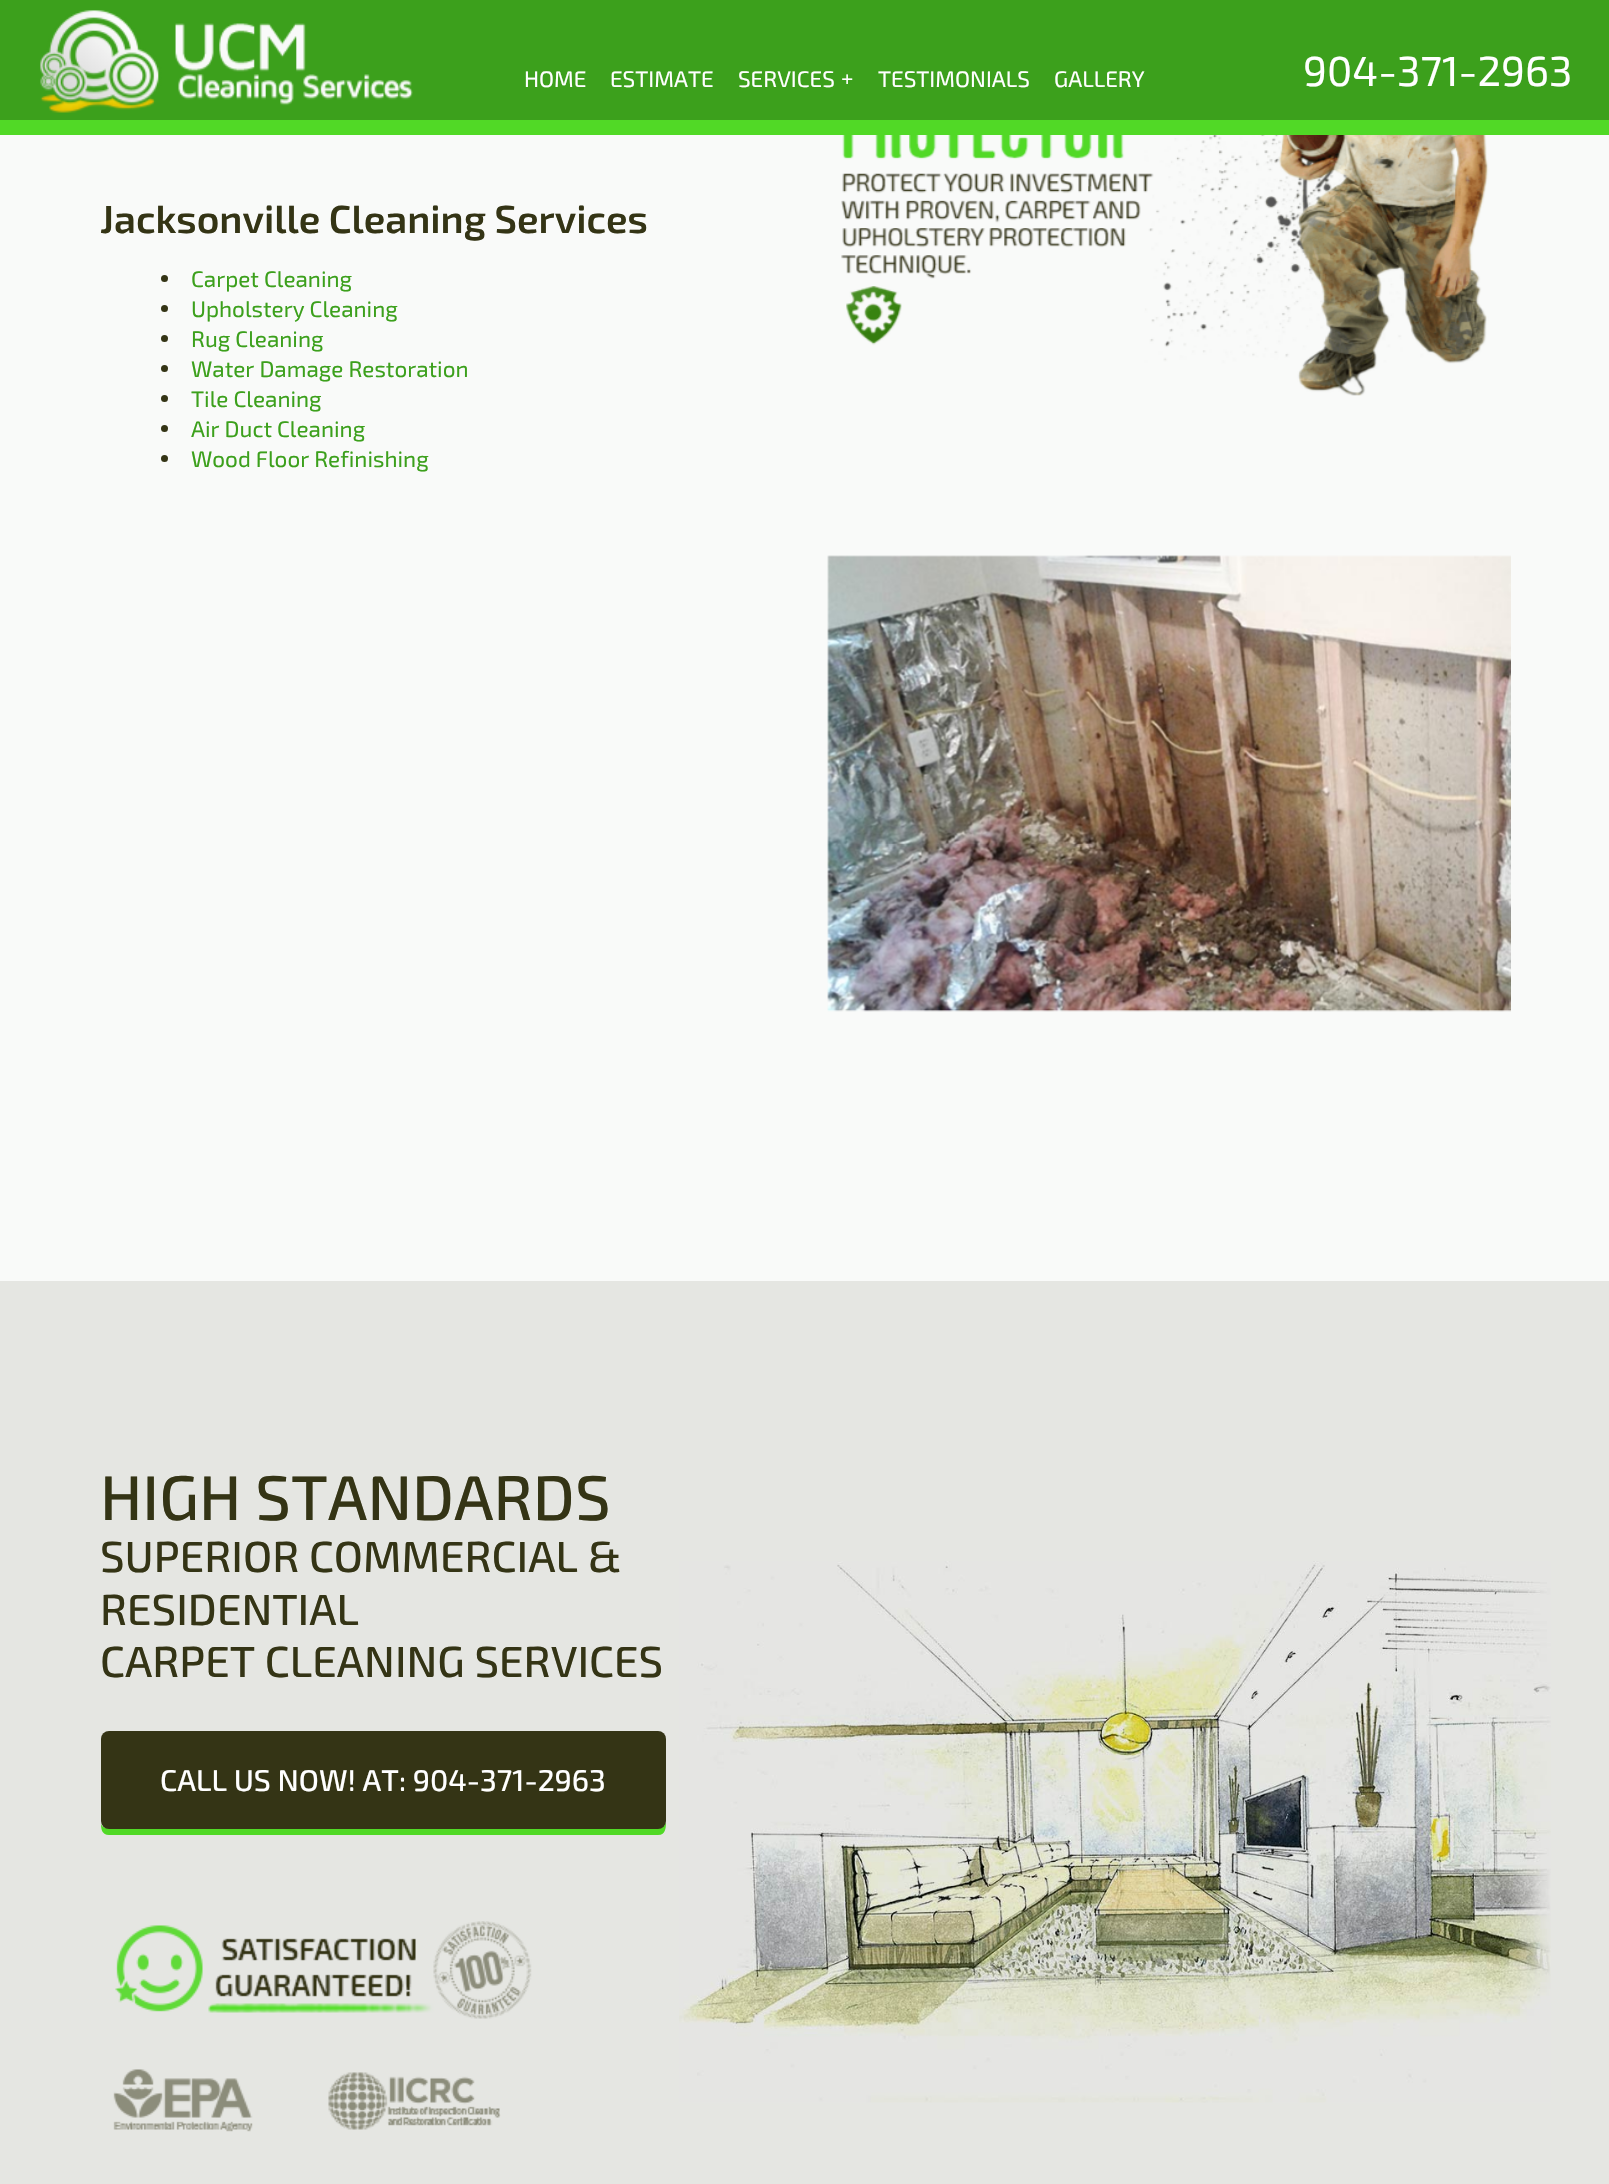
void draw(SkCanvas* c) {
SkPaint p;
p.setAntiAlias(true);
auto F=[&](const char* family, int weight, float size, bool italic = false){SkFontStyle style(weight, SkFontStyle::kNormal_Width,italic ? SkFontStyle::kItalic_Slant : SkFontStyle::kUpright_Slant);SkFont result(fontMgr->matchFamilyStyle(family, style), size);result.setSubpixel(true);return result;};
auto T=[&](const char* s, float x, float y, const SkFont& font){c->drawString(s, x, y, font, p);};
auto R=[&](float x, float y, float w, float h){c->drawRect(SkRect::MakeXYWH(x, y, w, h), p);};
auto Q=[&](float x, float y, float w, float h, float radius){c->drawRoundRect(SkRect::MakeXYWH(x, y, w, h), radius, radius, p);};
auto I=[&](const char* path, float x, float y, float w, float h){auto image = SkImages::DeferredFromEncodedData(SkData::MakeFromFileName(path));c->drawImageRect(image, SkRect::MakeXYWH(x, y, w, h), SkSamplingOptions());};
auto P=[&](const char* data, bool evenOdd = false){SkPath result = *SkParsePath::FromSVGString(data);if (evenOdd) result.setFillType(SkPathFillType::kEvenOdd);return result;};
c->clear(0xfff9faf9);
p.setColor(0xff3ca01c);
R(0,0,1609,120);
p.setColor(0xff51d926);
R(0,120,1609,15);
I("1.png",40,10,373,103);
auto f1 = F("Exo 2",400,22.5);
p.setColor(0xffffffff);
T("HOME",524,87,f1);
T("ESTIMATE",610,87,f1);
T("SERVICES",738,87,f1);
T("+",841,86,f1);
T("TESTIMONIALS",878,87,f1);
T("GALLERY",1054,87,f1);
auto f2 = F("Exo 2",400,42);
T("904-371-2963",1303,86,f2);
auto f3 = F("Exo 2",600,39);
p.setColor(0xff343415);
T("Jacksonville Cleaning Services",100,233,f3);
c->drawCircle(164.5,278.5,3.5,p);
p.setColor(0xff3ca01c);
T("Carpet Cleaning",191,287,f1);
p.setColor(0xff343415);
c->drawCircle(164.5,308.5,3.5,p);
p.setColor(0xff3ca01c);
T("Upholstery Cleaning",191,317,f1);
p.setColor(0xff343415);
c->drawCircle(164.5,338.5,3.5,p);
p.setColor(0xff3ca01c);
T("Rug Cleaning",191,347,f1);
p.setColor(0xff343415);
c->drawCircle(164.5,368.5,3.5,p);
p.setColor(0xff3ca01c);
T("Water Damage Restoration",191,377,f1);
p.setColor(0xff343415);
c->drawCircle(164.5,398.5,3.5,p);
p.setColor(0xff3ca01c);
T("Tile Cleaning",191,407,f1);
p.setColor(0xff343415);
c->drawCircle(164.5,428.5,3.5,p);
p.setColor(0xff3ca01c);
T("Air Duct Cleaning",191,437,f1);
p.setColor(0xff343415);
c->drawCircle(164.5,458.5,3.5,p);
p.setColor(0xff3ca01c);
T("Wood Floor Refinishing",191,467,f1);
I("2.png",841,135,659,261);
I("3.png",827,555,684,457);
p.setColor(0xffe5e6e2);
R(0,1281,1609,903);
I("4.png",679,1561,872,542);
auto f4 = F("Exo 2",500,63);
p.setColor(0xff343415);
T("HIGH STANDARDS",100,1520,f4);
auto f5 = F("Exo 2",500,43.5);
T("SUPERIOR COMMERCIAL &",100,1572,f5);
T("RESIDENTIAL",100,1625,f5);
T("CARPET CLEANING SERVICES",100,1677,f5);
p.setColor(0xff51d926);
c->drawPath(P("M101 1824c0 5 1 11 8 11h549c8 0 8-8 8-14c0 4-3 7-8 7h-550c-3 0-6-1-7-4z"),p);
p.setColor(0xff343415);
Q(101,1731,565,98,8);
auto f6 = F("Exo 2",500,30);
p.setColor(0xffffffff);
T("CALL US NOW! AT: 904-371-2963",160,1791,f6);
I("5.png",115,1921,417,98);
I("6.png",113,2069,388,63);
}
